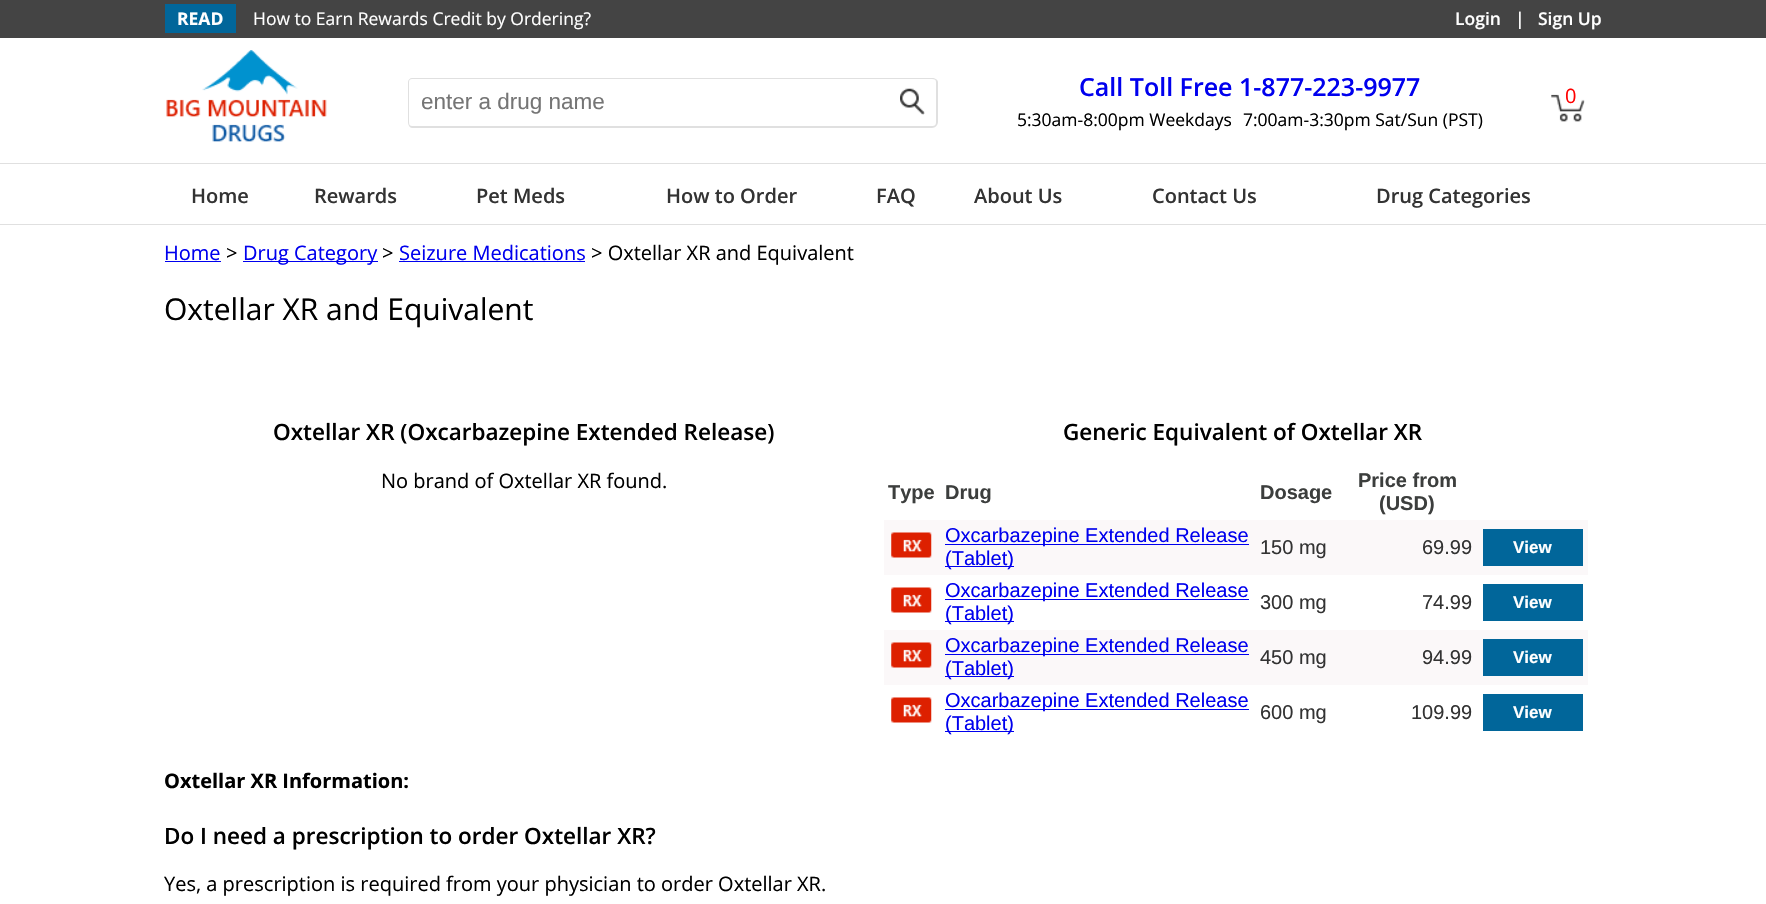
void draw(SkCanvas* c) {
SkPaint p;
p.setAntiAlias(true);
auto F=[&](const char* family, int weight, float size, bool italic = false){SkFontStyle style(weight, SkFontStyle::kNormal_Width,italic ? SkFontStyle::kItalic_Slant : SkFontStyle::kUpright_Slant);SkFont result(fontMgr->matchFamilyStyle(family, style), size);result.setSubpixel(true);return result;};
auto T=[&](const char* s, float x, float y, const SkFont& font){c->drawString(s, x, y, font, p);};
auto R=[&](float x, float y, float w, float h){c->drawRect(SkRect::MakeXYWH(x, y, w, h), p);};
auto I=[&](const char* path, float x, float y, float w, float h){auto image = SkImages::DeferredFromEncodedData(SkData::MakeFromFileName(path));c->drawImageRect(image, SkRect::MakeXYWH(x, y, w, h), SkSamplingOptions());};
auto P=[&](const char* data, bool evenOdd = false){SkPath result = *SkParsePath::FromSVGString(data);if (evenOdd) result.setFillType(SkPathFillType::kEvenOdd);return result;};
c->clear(0xffffffff);
p.setColor(0xff444444);
R(0,0,1766,38);
p.setColor(0xff01669a);
R(165,4,71,29);
auto f1 = F("Open Sans",700,17.5);
p.setColor(0xffffffff);
T("READ",177,25,f1);
auto f2 = F("Open Sans",400,17.5);
T("How to Earn Rewards Credit by Ordering?",253,25,f2);
auto f3 = F("Open Sans",600,17.5);
T("Login",1455,25,f3);
T("|",1515,25,f3);
T("Sign Up",1538,25,f3);
I("1.png",166,50,161,92);
p.setColor(0xffe0e0e0);
c->drawPath(P("M412 78h477v50h-477c-2 0-4-3-4-6v-40c0-2 2-4 4-4zm0 1h477v47h-477c-2 0-3-1-3-4v-40c0-2 1-3 3-3z",true),p);
auto f4 = F("Liberation Sans",400,22.5);
p.setColor(0xff757575);
T("enter a drug name",421,109,f4);
I("2.png",900,88,25,27);
p.setColor(0xffe0e0e0);
c->drawPath(P("M889 78h43c3 0 6 2 6 4v40c0 3-3 6-6 6h-43zm0 1h43c3 0 4 1 4 3v40c0 3-1 4-4 4h-43z",true),p);
auto f5 = F("Open Sans",600,25);
p.setColor(0xff0000ee);
T("Call Toll Free 1-877-223-9977",1079,96,f5);
p.setColor(0xff000000);
T("5:30am-8:00pm Weekdays",1017,126,f2);
T("7:00am-3:30pm Sat/Sun (PST)",1243,126,f2);
I("3.png",1551,94,34,28);
auto f6 = F("Open Sans",400,20);
p.setColor(0xffff0000);
T("0",1565,103,f6);
p.setColor(0xffe0e0e0);
R(0,163,1766,1);
R(0,224,1766,1);
auto f7 = F("Open Sans",600,20);
p.setColor(0xff333333);
T("Home",191,203,f7);
T("Rewards",314,203,f7);
T("Pet Meds",476,203,f7);
T("How to Order",666,203,f7);
T("FAQ",876,203,f7);
T("About Us",974,203,f7);
T("Contact Us",1152,203,f7);
T("Drug Categories",1376,203,f7);
p.setColor(0xff0000ee);
T("Home",164,260,f6);
R(165,261,56,1);
p.setColor(0xff000000);
T(">",226,260,f6);
p.setColor(0xff0000ee);
R(243,261,135,1);
T("Drug Category",243,260,f6);
p.setColor(0xff000000);
T(">",382,260,f6);
p.setColor(0xff0000ee);
T("Seizure Medications",399,260,f6);
R(399,261,186,1);
p.setColor(0xff000000);
T("> Oxtellar XR and Equivalent",591,260,f6);
auto f8 = F("Open Sans",400,30);
T("Oxtellar XR and Equivalent",164,320,f8);
auto f9 = F("Open Sans",600,22.5);
T("Oxtellar XR (Oxcarbazepine Extended Release)",273,440,f9);
T("No brand of Oxtellar XR found.",381,488,f6);
T("Generic Equivalent of Oxtellar XR",1063,440,f9);
auto f10 = F("Liberation Sans",700,20);
p.setColor(0xff3c3e3d);
T("Type",888,499,f10);
T("Drug",945,499,f10);
T("Dosage",1260,499,f10);
T("Price from",1358,487,f10);
T("(USD)",1379,510,f10);
p.setColor(0xfffbf8f9);
R(884,520,704,55);
I("4.png",891,532,41,26);
p.setColor(0xff0000ee);
R(945,544,304,1);
auto f11 = F("Liberation Sans",400,20);
T("Oxcarbazepine Extended Release",945,542,f11);
R(945,566,69,1);
T("(Tablet)",945,565,f11);
p.setColor(0xff333333);
T("150 mg",1260,554,f11);
T("69.99",1422,554,f11);
p.setColor(0xff01669a);
R(1483,529,100,37);
auto f12 = F("Liberation Sans",700,17);
p.setColor(0xffffffff);
T("View",1513,553,f12);
I("5.png",891,587,41,26);
p.setColor(0xff0000ee);
R(945,599,304,1);
T("Oxcarbazepine Extended Release",945,597,f11);
R(945,621,69,1);
T("(Tablet)",945,620,f11);
p.setColor(0xff333333);
T("300 mg",1260,609,f11);
T("74.99",1422,609,f11);
p.setColor(0xff01669a);
R(1483,584,100,37);
p.setColor(0xffffffff);
T("View",1513,608,f12);
p.setColor(0xfffbf8f9);
R(884,630,704,55);
I("4.png",891,642,41,26);
p.setColor(0xff0000ee);
R(945,654,304,1);
T("Oxcarbazepine Extended Release",945,652,f11);
R(945,676,69,1);
T("(Tablet)",945,675,f11);
p.setColor(0xff333333);
T("450 mg",1260,664,f11);
T("94.99",1422,664,f11);
p.setColor(0xff01669a);
R(1483,639,100,37);
p.setColor(0xffffffff);
T("View",1513,663,f12);
I("6.png",891,697,41,26);
p.setColor(0xff0000ee);
R(945,709,304,1);
T("Oxcarbazepine Extended Release",945,707,f11);
R(945,731,69,1);
T("(Tablet)",945,730,f11);
p.setColor(0xff333333);
T("600 mg",1260,719,f11);
T("109.99",1411,719,f11);
p.setColor(0xff01669a);
R(1483,694,100,37);
p.setColor(0xffffffff);
T("View",1513,718,f12);
auto f13 = F("Open Sans",700,20);
p.setColor(0xff000000);
T("Oxtellar XR Information:",164,788,f13);
T("Do I need a prescription to order Oxtellar XR?",164,844,f9);
T("Yes, a prescription is required from your physician to order Oxtellar XR.",164,891,f6);
}
